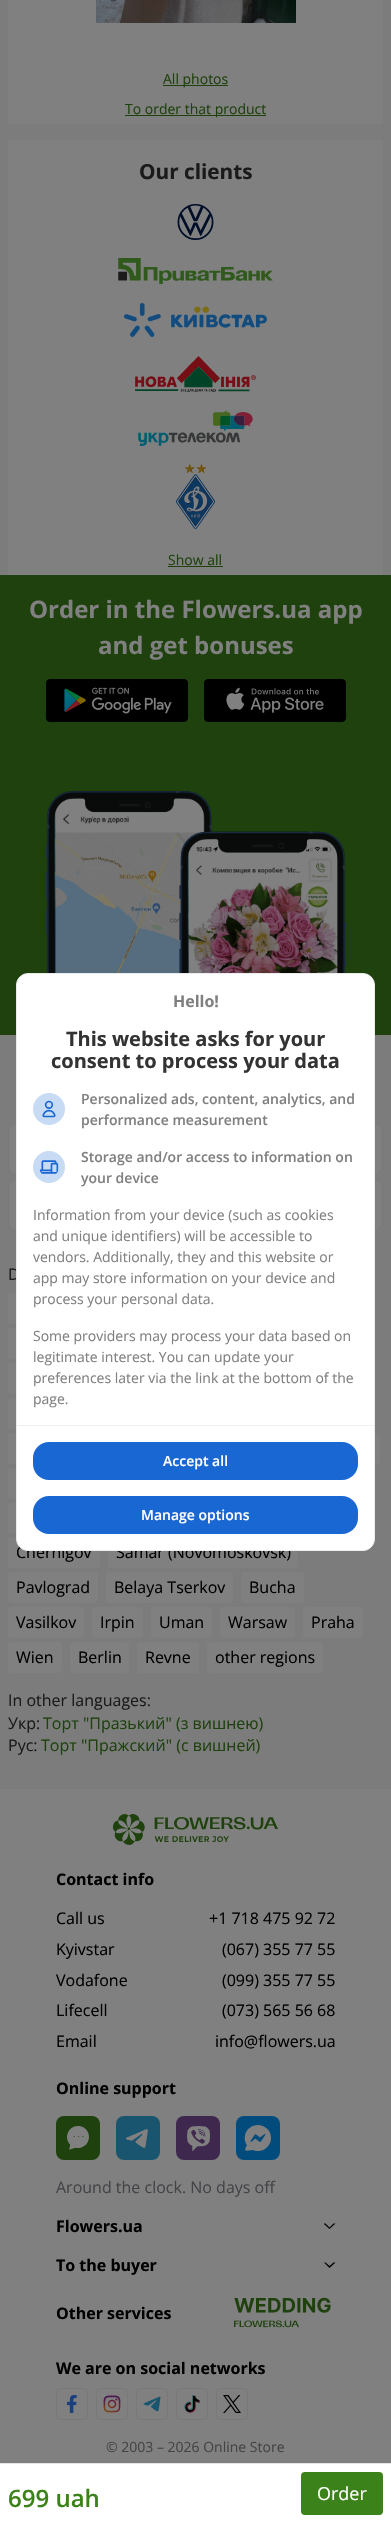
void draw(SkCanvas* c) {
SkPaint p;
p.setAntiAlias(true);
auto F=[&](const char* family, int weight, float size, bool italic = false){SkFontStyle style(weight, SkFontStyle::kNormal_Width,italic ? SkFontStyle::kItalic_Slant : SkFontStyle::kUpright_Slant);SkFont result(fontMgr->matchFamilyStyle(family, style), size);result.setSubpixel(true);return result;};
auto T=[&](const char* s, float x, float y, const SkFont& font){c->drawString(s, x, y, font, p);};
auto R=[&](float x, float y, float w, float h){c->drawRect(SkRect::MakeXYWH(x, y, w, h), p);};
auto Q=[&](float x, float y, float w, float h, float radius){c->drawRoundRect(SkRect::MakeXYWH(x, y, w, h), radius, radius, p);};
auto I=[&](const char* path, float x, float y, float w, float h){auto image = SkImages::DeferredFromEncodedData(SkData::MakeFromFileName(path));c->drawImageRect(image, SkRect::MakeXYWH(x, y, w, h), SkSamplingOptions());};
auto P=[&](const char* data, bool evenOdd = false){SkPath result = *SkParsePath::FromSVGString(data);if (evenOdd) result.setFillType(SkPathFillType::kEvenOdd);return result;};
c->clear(0xff7c7c7c);
p.setColor(0xff808080);
R(8,0,375,124);
I("1.png",96,0,200,23);
p.setColor(0xff1e410d);
R(163,85,65,1);
auto f1 = F("Open Sans",400,14);
T("All photos",163,84,f1);
R(125,115,141,1);
T("To order that product",125,114,f1);
p.setColor(0xff808080);
R(8,140,375,435);
auto f2 = F("Open Sans",700,20.75);
p.setColor(0xff1a1a1a);
T("Our clients",139,179,f2);
I("2.png",177,204,37,36);
I("3.png",118,258,155,26);
I("4.png",124,303,143,34);
I("5.png",135,356,121,36);
I("6.png",138,410,115,36);
I("7.png",176,464,39,65);
p.setColor(0xff1e410d);
T("Show all",168,565,f1);
R(168,566,55,1);
p.setColor(0xffffffff);
R(0,2464,391,59);
p.setColor(0xffe5e5e5);
R(0,2463,391,1);
auto f3 = F("Open Sans",600,24);
p.setColor(0xff3c821a);
T("699 uah",8,2507,f3);
Q(301,2472,82,43,4);
auto f4 = F("Open Sans",400,18);
p.setColor(0xffffffff);
T("Order",317,2500,f4);
p.setColor(0xff1e410d);
R(0,575,391,460);
auto f5 = F("Open Sans",700,24);
p.setColor(0xff808080);
T("Order in the Flowers.ua app",29,618,f5);
T("and get bonuses",98,654,f5);
I("8.png",46,679,142,43);
I("9.png",204,679,142,43);
I("10.png",46,791,300,182);
c->drawRoundRect(SkRect::MakeXYWH(8.5,1123.5,90,51),7.5,7.5,p);
p.setStroke(true);
p.setStrokeWidth(1);
p.setColor(0xff787878);
c->drawRoundRect(SkRect::MakeXYWH(8.5,1123.5,90,51),7.5,7.5,p);
p.setStroke(false);
p.setColor(0xff808080);
c->drawRoundRect(SkRect::MakeXYWH(292.5,1123.5,90,51),7.5,7.5,p);
p.setStroke(true);
p.setColor(0xff787878);
c->drawRoundRect(SkRect::MakeXYWH(292.5,1123.5,90,51),7.5,7.5,p);
p.setStroke(false);
p.setColor(0xff808080);
c->drawRoundRect(SkRect::MakeXYWH(8.5,1179.5,90,51),7.5,7.5,p);
p.setStroke(true);
p.setColor(0xff787878);
c->drawRoundRect(SkRect::MakeXYWH(8.5,1179.5,90,51),7.5,7.5,p);
p.setStroke(false);
p.setColor(0xff808080);
c->drawRoundRect(SkRect::MakeXYWH(292.5,1179.5,90,51),7.5,7.5,p);
p.setStroke(true);
p.setColor(0xff787878);
c->drawRoundRect(SkRect::MakeXYWH(292.5,1179.5,90,51),7.5,7.5,p);
auto f6 = F("Open Sans",400,16);
p.setStroke(false);
p.setColor(0xff1a1a1a);
T("D",8,1280,f6);
p.setColor(0xff808080);
Q(8,1293,48,31,4);
Q(8,1328,104,31,4);
Q(8,1363,215,31,4);
Q(8,1398,94,31,4);
Q(8,1433,71,31,4);
Q(302,1433,78,31,4);
Q(8,1468,89,31,4);
Q(8,1503,107,30,4);
Q(8,1537,92,31,4);
p.setColor(0xff000000);
T("Chernigov",16,1558,f6);
p.setColor(0xff808080);
Q(108,1537,190,31,4);
p.setColor(0xff000000);
T("Samar (Novomoskovsk)",116,1558,f6);
p.setColor(0xffffffff);
c->drawRoundRect(SkRect::MakeXYWH(16.5,973.5,358,577),11.5,11.5,p);
p.setStroke(true);
p.setColor(0xffebebeb);
c->drawRoundRect(SkRect::MakeXYWH(16.5,973.5,358,577),11.5,11.5,p);
auto f7 = F("Open Sans",700,16);
p.setStroke(false);
p.setColor(0xff808080);
T("Hello!",173,1007,f7);
auto f8 = F("Open Sans",700,20);
p.setColor(0xff333333);
T("This website asks for your",66,1046,f8);
T("consent to process your data",51,1068,f8);
p.setColor(0xffc8dbf4);
c->drawCircle(49,1109,16,p);
I("11.png",42,1100,14,18);
auto f9 = F("Open Sans",600,14);
p.setColor(0xff808080);
T("Personalized ads, content, analytics, and",81,1104,f9);
T("performance measurement",81,1125,f9);
p.setColor(0xffc8dbf4);
c->drawCircle(49,1167,16,p);
I("12.png",39,1160,20,14);
p.setColor(0xff808080);
T("Storage and/or access to information on",81,1162,f9);
T("your device",81,1183,f9);
T("Information from your device (such as cookies",33,1220,f1);
T("and unique identifiers) will be accessible to",33,1241,f1);
T("vendors. Additionally, they and this website or",33,1262,f1);
T("app may store information on your device and",33,1283,f1);
T("process your personal data.",33,1304,f1);
T("Some providers may process your data based on",33,1341,f1);
T("legitimate interest. You can update your",33,1362,f1);
T("preferences later via the link at the bottom of the",33,1383,f1);
T("page.",33,1404,f1);
p.setColor(0xfff0f0f0);
R(17,1425,357,1);
p.setColor(0xff1967d2);
Q(33,1442,325,38,16);
p.setColor(0xffffffff);
T("Accept all",163,1466,f9);
p.setColor(0xff1967d2);
Q(33,1496,325,38,16);
p.setColor(0xffffffff);
T("Manage options",141,1520,f9);
p.setColor(0xff808080);
Q(8,1572,90,31,4);
p.setColor(0xff000000);
T("Pavlograd",16,1593,f6);
p.setColor(0xff808080);
Q(106,1572,127,31,4);
p.setColor(0xff000000);
T("Belaya Tserkov",114,1593,f6);
p.setColor(0xff808080);
Q(241,1572,63,31,4);
p.setColor(0xff000000);
T("Bucha",249,1593,f6);
p.setColor(0xff808080);
Q(8,1607,76,31,4);
p.setColor(0xff000000);
T("Vasilkov",16,1628,f6);
p.setColor(0xff808080);
Q(92,1607,51,31,4);
p.setColor(0xff000000);
T("Irpin",100,1628,f6);
p.setColor(0xff808080);
Q(151,1607,61,31,4);
p.setColor(0xff000000);
T("Uman",159,1628,f6);
p.setColor(0xff808080);
Q(220,1607,75,31,4);
p.setColor(0xff000000);
T("Warsaw",228,1628,f6);
p.setColor(0xff808080);
Q(303,1607,60,31,4);
p.setColor(0xff000000);
T("Praha",311,1628,f6);
p.setColor(0xff808080);
Q(8,1642,54,31,4);
p.setColor(0xff000000);
T("Wien",16,1663,f6);
p.setColor(0xff808080);
Q(70,1642,59,31,4);
p.setColor(0xff000000);
T("Berlin",78,1663,f6);
p.setColor(0xff808080);
Q(137,1642,62,31,4);
p.setColor(0xff000000);
T("Revne",145,1663,f6);
p.setColor(0xff808080);
Q(207,1642,116,31,4);
p.setColor(0xff000000);
T("other regions",215,1663,f6);
p.setColor(0xff1a1a1a);
T("In other languages:",8,1706,f6);
T("Укр:",8,1729,f6);
p.setColor(0xff1e410d);
T("Торт \"Празький\" (з вишнею)",43,1729,f6);
p.setColor(0xff1a1a1a);
T("Рус:",8,1751,f6);
p.setColor(0xff1e410d);
T("Торт \"Пражский\" (с вишней)",41,1751,f6);
p.setColor(0xff808080);
R(0,1789,391,674);
I("13.png",113,1814,165,31);
p.setColor(0xff000000);
T("Contact info",56,1885,f7);
T("Сall us",56,1924,f6);
T("+1 718 475 92 72",209,1924,f6);
T("Kyivstar",56,1955,f6);
T("(067) 355 77 55",222,1955,f6);
T("Vodafone",56,1986,f6);
T("(099) 355 77 55",222,1986,f6);
T("Lifecell",56,2016,f6);
T("(073) 565 56 68",222,2016,f6);
T("Email",56,2047,f6);
T("info@flowers.ua",215,2047,f6);
T("Online support",56,2094,f7);
p.setColor(0xff1e410d);
Q(56,2116,44,44,8);
I("14.png",67,2126,22,24);
I("15.png",116,2116,44,44);
I("16.png",176,2116,44,44);
I("17.png",236,2116,44,44);
p.setColor(0xff434447);
T("Around the clock. No days off",56,2193,f6);
p.setColor(0xff000000);
T("Flowers.ua",56,2232,f7);
c->drawPath(P("M329.5 2229l-5.5-5v-.5h1.5l4 4l4-4h2z"),p);
T("To the buyer",56,2271,f7);
c->drawPath(P("M329.5 2268l-5.5-5.5h1.5l4 3.5l4-3.5h2z"),p);
T("Other services",56,2319,f7);
I("18.png",234,2297,97,31);
T("We are on social networks",56,2374,f7);
p.setStroke(true);
p.setColor(0xff797979);
c->drawRoundRect(SkRect::MakeXYWH(56.5,2388.5,31,31),3.5,3.5,p);
I("19.png",66,2395,11,18);
c->drawRoundRect(SkRect::MakeXYWH(96.5,2388.5,31,31),3.5,3.5,p);
I("20.png",103,2395,18,18);
c->drawRoundRect(SkRect::MakeXYWH(136.5,2388.5,31,31),3.5,3.5,p);
I("21.png",143,2396,18,16);
c->drawRoundRect(SkRect::MakeXYWH(176.5,2388.5,31,31),3.5,3.5,p);
I("22.png",184,2395,16,18);
c->drawRoundRect(SkRect::MakeXYWH(216.5,2388.5,31,31),3.5,3.5,p);
I("23.png",223,2395,18,18);
p.setStroke(false);
p.setColor(0xff434447);
T("© 2003 – 2026 Online Store",106,2452,f1);
}
